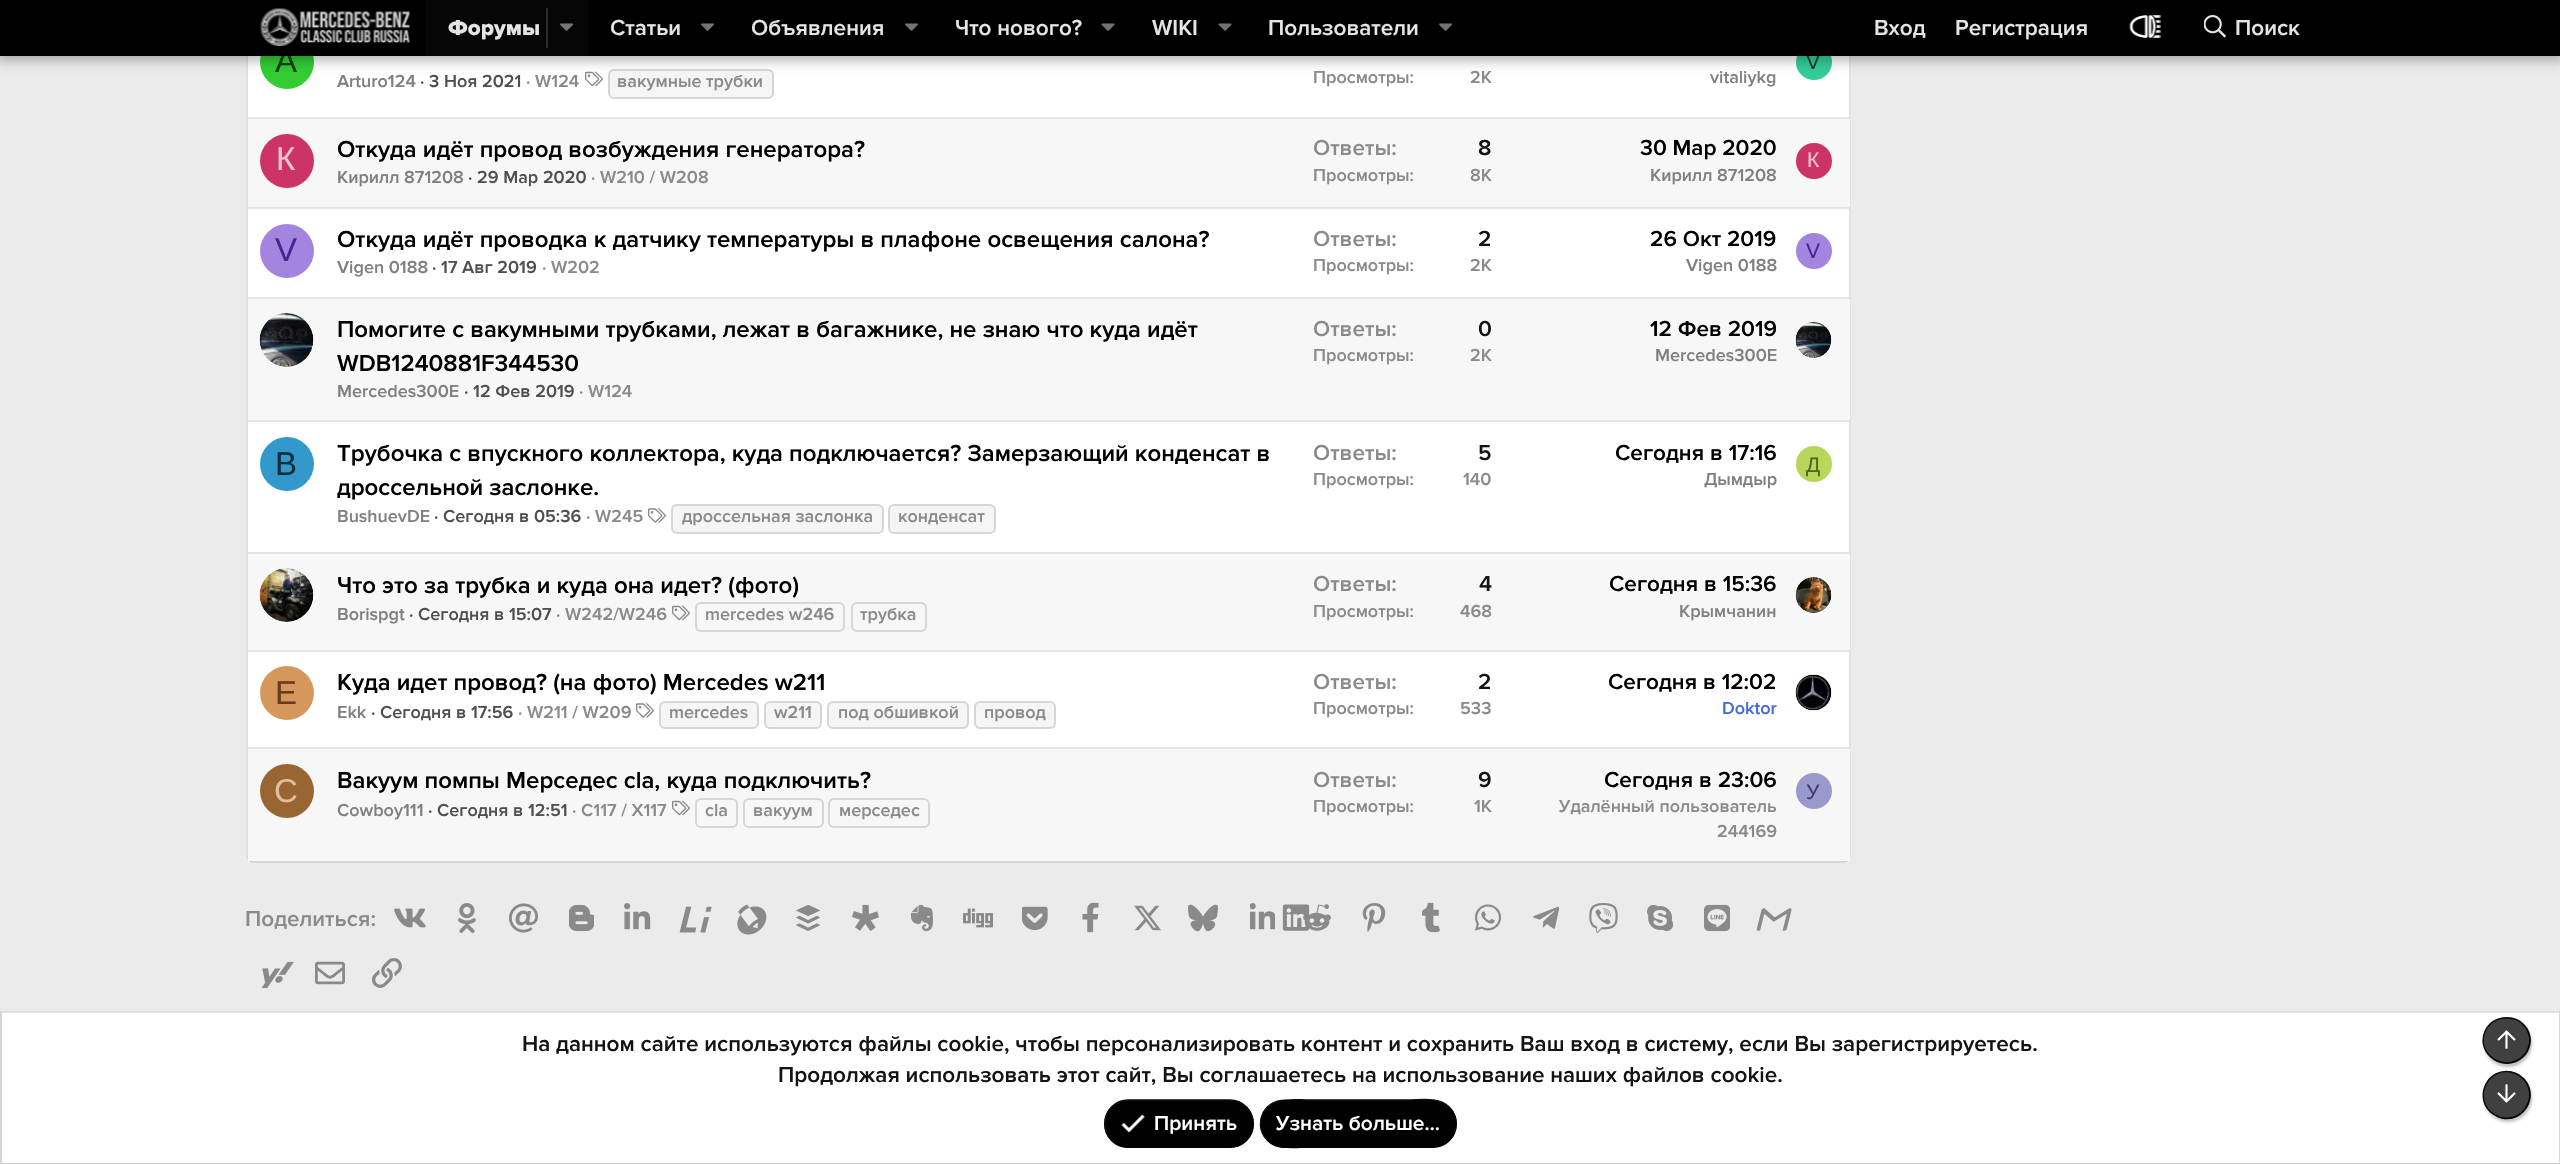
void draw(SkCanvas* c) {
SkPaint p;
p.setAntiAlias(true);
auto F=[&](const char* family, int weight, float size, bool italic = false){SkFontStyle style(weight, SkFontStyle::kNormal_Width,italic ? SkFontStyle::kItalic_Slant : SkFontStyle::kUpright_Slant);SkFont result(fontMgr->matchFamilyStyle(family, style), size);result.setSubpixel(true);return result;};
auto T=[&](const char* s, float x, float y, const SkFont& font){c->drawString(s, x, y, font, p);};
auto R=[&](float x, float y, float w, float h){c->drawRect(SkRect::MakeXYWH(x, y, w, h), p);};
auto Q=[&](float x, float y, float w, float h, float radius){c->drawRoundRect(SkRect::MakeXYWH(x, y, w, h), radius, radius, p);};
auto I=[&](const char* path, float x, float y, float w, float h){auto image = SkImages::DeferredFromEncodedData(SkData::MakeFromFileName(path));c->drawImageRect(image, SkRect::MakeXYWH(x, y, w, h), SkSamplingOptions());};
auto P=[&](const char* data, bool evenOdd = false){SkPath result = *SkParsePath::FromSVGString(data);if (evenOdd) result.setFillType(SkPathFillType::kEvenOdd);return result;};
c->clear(0xffebebeb);
p.setColor(0xffffffff);
Q(246,-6,1605,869,6);
p.setStroke(true);
p.setStrokeWidth(1.5);
p.setColor(0xffd6d6d6);
c->drawPath(P("M1848.5-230c1 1 1.5 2 1.5 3.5v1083c0 1.5-.5 2.5-1.5 3.5"),p);
p.setColor(0xffcccccc);
c->drawPath(P("M1848.5 860c-1 1-2 2-3.5 2h-1593c-1.5 0-2.5-1-3.5-2"),p);
p.setColor(0xffd6d6d6);
c->drawPath(P("M248.5 860c-1-1-1.5-2-1.5-3.5v-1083c0-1.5 .5-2.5 1.5-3.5"),p);
p.setStroke(false);
p.setColor(0xff33cc33);
c->drawCircle(287,62,27,p);
p.setColor(0xff33cc99);
c->drawCircle(1814,62,18,p);
I("7.png",585,71,18,16);
p.setColor(0xfff5f5f5);
c->drawRoundRect(SkRect::MakeXYWH(609,70,164,28),5,5,p);
p.setStroke(true);
p.setStrokeWidth(2);
p.setColor(0xffd6d6d6);
c->drawRoundRect(SkRect::MakeXYWH(609,70,164,28),5,5,p);
p.setStroke(false);
p.setColor(0x4d000000);
p.setMaskFilter(SkMaskFilter::MakeBlur(kNormal_SkBlurStyle, 6));
c->drawRect(SkRect::MakeXYWH(-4,-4,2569,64),p);
p.setMaskFilter(nullptr);
auto f1 = F("Liberation Sans",400,33);
p.setColor(0xff0f3d0f);
T("A",275,72,f1);
auto f2 = F("Liberation Sans",400,21);
p.setColor(0xff0f3d2e);
T("V",1806,69,f2);
p.setColor(0xff000000);
R(0,0,2560,56);
I("1.png",260,8,150,38);
p.setColor(0xff060606);
R(426,0,162,56);
auto f3 = F("Proxima Nova",800,22.5);
p.setColor(0xffe5e5e5);
T("Форумы",448,35,f3);
p.setColor(0xff2d2d2d);
R(546,8,2,40);
I("2.png",560,23,13,8);
auto f4 = F("Proxima Nova",600,22.5);
p.setColor(0xffe5e5e5);
T("Статьи",610,35,f4);
I("3.png",701,23,13,8);
T("Объявления",751,35,f4);
I("3.png",905,23,13,8);
T("Что нового?",955,35,f4);
I("4.png",1101,23,14,8);
T("WIKI",1152,35,f4);
I("4.png",1218,23,14,8);
T("Пользователи",1268,35,f4);
I("3.png",1439,23,13,8);
T("Вход",1874,35,f4);
T("Регистрация",1955,35,f4);
I("5.png",2129,15,32,23);
I("6.png",2204,15,22,23);
T("Поиск",2235,35,f4);
auto f5 = F("Proxima Nova",600,18);
p.setColor(0xff808080);
T("Arturo124",337,87,f5);
p.setColor(0xff4f4f4f);
T("· 3 Ноя 2021",420,87,f5);
p.setColor(0xff8a8a8a);
T("· W124",526,87,f5);
T("вакумные трубки",617,87,f5);
T("Просмотры:",1313,83,f5);
T("2K",1470,83,f5);
p.setColor(0xff808080);
T("vitaliykg",1710,83,f5);
p.setColor(0xfff7f7f7);
R(248,119,1602,88);
p.setColor(0xffe5e5e5);
R(248,117,1602,2);
p.setColor(0xffcc3366);
c->drawCircle(287,161,27,p);
p.setColor(0xfff0c2d1);
T("К",276,170,f1);
auto f6 = F("Proxima Nova",600,24);
p.setColor(0xff000000);
T("Откуда идёт провод возбуждения генератора?",337,157,f6);
p.setColor(0xff808080);
T("Кирилл 871208",337,183,f5);
p.setColor(0xff4f4f4f);
T("· 29 Мар 2020",468,183,f5);
p.setColor(0xff8a8a8a);
T("· W210 / W208",591,183,f5);
T("Ответы:",1313,155,f4);
p.setColor(0xff141414);
T("8",1478,155,f4);
p.setColor(0xff8a8a8a);
T("Просмотры:",1313,181,f5);
T("8K",1470,181,f5);
p.setColor(0xff000000);
T("30 Мар 2020",1640,155,f4);
p.setColor(0xff808080);
T("Кирилл 871208",1650,181,f5);
p.setColor(0xffcc3366);
c->drawCircle(1814,161,18,p);
p.setColor(0xfff0c2d1);
T("К",1807,167,f2);
p.setColor(0xffe5e5e5);
R(248,207,1602,2);
p.setColor(0xffa385e0);
c->drawCircle(287,251,27,p);
p.setColor(0xff47248f);
T("V",275,261,f1);
p.setColor(0xff000000);
T("Откуда идёт проводка к датчику температуры в плафоне освещения салона?",337,247,f6);
p.setColor(0xff808080);
T("Vigen 0188",337,273,f5);
p.setColor(0xff4f4f4f);
T("· 17 Авг 2019",432,273,f5);
p.setColor(0xff8a8a8a);
T("· W202",542,273,f5);
T("Ответы:",1313,246,f4);
p.setColor(0xff141414);
T("2",1478,246,f4);
p.setColor(0xff8a8a8a);
T("Просмотры:",1313,271,f5);
T("2K",1470,271,f5);
p.setColor(0xff000000);
T("26 Окт 2019",1650,246,f4);
p.setColor(0xff808080);
T("Vigen 0188",1686,271,f5);
p.setColor(0xffa385e0);
c->drawCircle(1814,251,18,p);
p.setColor(0xff47248f);
T("V",1806,258,f2);
p.setColor(0xfff7f7f7);
R(248,299,1602,121);
p.setColor(0xffe5e5e5);
R(248,297,1602,2);
p.setColor(0xffffffff);
c->drawCircle(287,341,27,p);
I("8.png",259,313,55,54);
p.setColor(0xff000000);
T("Помогите с вакумными трубками, лежат в багажнике, не знаю что куда идёт",337,337,f6);
T("WDB1240881F344530",337,371,f6);
p.setColor(0xff808080);
T("Mercedes300E",337,397,f5);
p.setColor(0xff4f4f4f);
T("· 12 Фев 2019",464,397,f5);
p.setColor(0xff8a8a8a);
T("· W124",579,397,f5);
T("Ответы:",1313,336,f4);
p.setColor(0xff141414);
T("0",1478,336,f4);
p.setColor(0xff8a8a8a);
T("Просмотры:",1313,361,f5);
T("2K",1470,361,f5);
p.setColor(0xff000000);
T("12 Фев 2019",1650,336,f4);
p.setColor(0xff808080);
T("Mercedes300E",1655,361,f5);
p.setColor(0xffffffff);
c->drawCircle(1814,341,18,p);
I("9.png",1795,322,37,36);
p.setColor(0xffe5e5e5);
R(248,420,1602,2);
p.setColor(0xff3399cc);
c->drawCircle(287,464,27,p);
p.setColor(0xff0f2e3d);
T("B",275,475,f1);
p.setColor(0xff000000);
T("Трубочка с впускного коллектора, куда подключается? Замерзающий конденсат в",337,461,f6);
T("дроссельной заслонке.",337,495,f6);
p.setColor(0xff808080);
T("BushuevDE",337,522,f5);
p.setColor(0xff4f4f4f);
T("· Сегодня в 05:36",434,522,f5);
p.setColor(0xff8a8a8a);
T("· W245",586,522,f5);
I("10.png",648,508,18,15);
p.setColor(0xfff5f5f5);
c->drawRoundRect(SkRect::MakeXYWH(672,505,211,28),5,5,p);
p.setStroke(true);
p.setColor(0xffd6d6d6);
c->drawRoundRect(SkRect::MakeXYWH(672,505,211,28),5,5,p);
p.setStroke(false);
p.setColor(0xff8a8a8a);
T("дроссельная заслонка",682,522,f5);
p.setColor(0xfff5f5f5);
c->drawRoundRect(SkRect::MakeXYWH(889,505,106,28),5,5,p);
p.setStroke(true);
p.setColor(0xffd6d6d6);
c->drawRoundRect(SkRect::MakeXYWH(889,505,106,28),5,5,p);
p.setStroke(false);
p.setColor(0xff8a8a8a);
T("конденсат",898,522,f5);
T("Ответы:",1313,460,f4);
p.setColor(0xff141414);
T("5",1478,460,f4);
p.setColor(0xff8a8a8a);
T("Просмотры:",1313,485,f5);
T("140",1463,485,f5);
p.setColor(0xff000000);
T("Сегодня в 17:16",1615,460,f4);
p.setColor(0xff808080);
T("Дымдыр",1704,485,f5);
p.setColor(0xffb8d65c);
c->drawCircle(1814,464,18,p);
p.setColor(0xff53661a);
T("Д",1806,472,f2);
p.setColor(0xfff7f7f7);
R(248,554,1602,96);
p.setColor(0xffe5e5e5);
R(248,552,1602,2);
p.setColor(0xffffffff);
c->drawCircle(287,596,27,p);
I("11.png",259,568,55,54);
p.setColor(0xff000000);
T("Что это за трубка и куда она идет? (фото)",337,593,f6);
p.setColor(0xff808080);
T("Borispgt",337,620,f5);
p.setColor(0xff4f4f4f);
T("· Сегодня в 15:07",409,620,f5);
p.setColor(0xff8a8a8a);
T("· W242/W246",556,620,f5);
I("12.png",672,605,18,16);
p.setStroke(true);
p.setColor(0xffd6d6d6);
c->drawRoundRect(SkRect::MakeXYWH(696,603,148,28),5,5,p);
p.setStroke(false);
p.setColor(0xff8a8a8a);
T("mercedes w246",705,620,f5);
p.setStroke(true);
p.setColor(0xffd6d6d6);
c->drawRoundRect(SkRect::MakeXYWH(852,603,74,28),5,5,p);
p.setStroke(false);
p.setColor(0xff8a8a8a);
T("трубка",860,620,f5);
T("Ответы:",1313,591,f4);
p.setColor(0xff141414);
T("4",1479,591,f4);
p.setColor(0xff8a8a8a);
T("Просмотры:",1313,617,f5);
T("468",1460,617,f5);
p.setColor(0xff000000);
T("Сегодня в 15:36",1609,591,f4);
p.setColor(0xff808080);
T("Крымчанин",1679,617,f5);
p.setColor(0xffffffff);
c->drawCircle(1814,596,18,p);
I("13.png",1795,577,37,36);
p.setColor(0xffe5e5e5);
R(248,650,1602,2);
p.setColor(0xffd6975c);
c->drawCircle(287,693,27,p);
p.setColor(0xff663e1a);
T("E",275,704,f1);
p.setColor(0xff000000);
T("Куда идет провод? (на фото) Mercedes w211",337,690,f6);
p.setColor(0xff808080);
T("Ekk",337,718,f5);
p.setColor(0xff4f4f4f);
T("· Сегодня в 17:56",371,718,f5);
p.setColor(0xff8a8a8a);
T("· W211 / W209",518,718,f5);
I("10.png",636,703,18,15);
p.setColor(0xfff5f5f5);
c->drawRoundRect(SkRect::MakeXYWH(660,702,98,26),5,5,p);
p.setStroke(true);
p.setColor(0xffd6d6d6);
c->drawRoundRect(SkRect::MakeXYWH(660,702,98,26),5,5,p);
p.setStroke(false);
p.setColor(0xff8a8a8a);
T("mercedes",669,718,f5);
p.setColor(0xfff5f5f5);
c->drawRoundRect(SkRect::MakeXYWH(765,702,56,26),5,5,p);
p.setStroke(true);
p.setColor(0xffd6d6d6);
c->drawRoundRect(SkRect::MakeXYWH(765,702,56,26),5,5,p);
p.setStroke(false);
p.setColor(0xff8a8a8a);
T("w211",774,718,f5);
p.setColor(0xfff5f5f5);
c->drawRoundRect(SkRect::MakeXYWH(828,702,140,26),5,5,p);
p.setStroke(true);
p.setColor(0xffd6d6d6);
c->drawRoundRect(SkRect::MakeXYWH(828,702,140,26),5,5,p);
p.setStroke(false);
p.setColor(0xff8a8a8a);
T("под обшивкой",838,718,f5);
p.setColor(0xfff5f5f5);
c->drawRoundRect(SkRect::MakeXYWH(975,702,80,26),5,5,p);
p.setStroke(true);
p.setColor(0xffd6d6d6);
c->drawRoundRect(SkRect::MakeXYWH(975,702,80,26),5,5,p);
p.setStroke(false);
p.setColor(0xff8a8a8a);
T("провод",984,718,f5);
T("Ответы:",1313,689,f4);
p.setColor(0xff141414);
T("2",1478,689,f4);
p.setColor(0xff8a8a8a);
T("Просмотры:",1313,714,f5);
T("533",1460,714,f5);
p.setColor(0xff000000);
T("Сегодня в 12:02",1608,689,f4);
p.setColor(0xff4169e1);
T("Doktor",1722,714,f5);
I("14.png",1795,674,37,37);
p.setColor(0xfff7f7f7);
R(248,749,1602,112);
p.setColor(0xffe5e5e5);
R(248,747,1602,2);
p.setColor(0xff996633);
c->drawCircle(287,791,27,p);
p.setColor(0xffdfbf9f);
T("C",274,802,f1);
p.setColor(0xff000000);
T("Вакуум помпы Мерседес cla, куда подключить?",337,788,f6);
p.setColor(0xff808080);
T("Cowboy111",337,816,f5);
p.setColor(0xff4f4f4f);
T("· Сегодня в 12:51",428,816,f5);
p.setColor(0xff8a8a8a);
T("· C117 / X117",572,816,f5);
I("12.png",672,800,18,16);
p.setStroke(true);
p.setColor(0xffd6d6d6);
c->drawRoundRect(SkRect::MakeXYWH(696,799,41,28),5,5,p);
p.setStroke(false);
p.setColor(0xff8a8a8a);
T("cla",705,816,f5);
p.setStroke(true);
p.setColor(0xffd6d6d6);
c->drawRoundRect(SkRect::MakeXYWH(744,799,79,28),5,5,p);
p.setStroke(false);
p.setColor(0xff8a8a8a);
T("вакуум",753,816,f5);
p.setStroke(true);
p.setColor(0xffd6d6d6);
c->drawRoundRect(SkRect::MakeXYWH(829,799,100,28),5,5,p);
p.setStroke(false);
p.setColor(0xff8a8a8a);
T("мерседес",839,816,f5);
T("Ответы:",1313,787,f4);
p.setColor(0xff141414);
T("9",1478,787,f4);
p.setColor(0xff8a8a8a);
T("Просмотры:",1313,812,f5);
T("1K",1474,812,f5);
p.setColor(0xff000000);
T("Сегодня в 23:06",1604,787,f4);
p.setColor(0xff8a8a8a);
T("Удалённый пользователь",1559,812,f5);
T("244169",1717,837,f5);
p.setColor(0xff9999cc);
c->drawCircle(1814,791,18,p);
p.setColor(0xff3c3c77);
T("У",1806,799,f2);
I("15.png",394,908,32,20);
I("16.png",458,903,18,30);
I("17.png",509,903,29,30);
I("18.png",569,904,25,28);
I("19.png",624,903,27,27);
I("20.png",679,906,33,27);
I("21.png",737,904,30,31);
I("22.png",796,905,24,26);
I("23.png",852,904,27,27);
I("24.png",911,904,22,28);
I("25.png",963,908,30,20);
I("26.png",1022,906,26,25);
I("27.png",1082,902,17,31);
I("28.png",1134,905,27,26);
I("29.png",1188,904,30,28);
I("30.png",1250,903,25,27);
I("31.png",1282,904,28,27);
I("32.png",1303,904,28,27);
I("33.png",1362,903,24,29);
I("34.png",1422,902,18,31);
I("35.png",1475,904,27,27);
I("36.png",1533,906,27,23);
I("37.png",1589,903,29,30);
I("38.png",1647,904,26,28);
I("39.png",1704,904,26,28);
I("40.png",1756,908,36,23);
I("41.png",261,961,33,28);
I("42.png",315,961,30,24);
I("43.png",372,958,30,30);
p.setColor(0xff8a8a8a);
T("Поделиться:",245,926,f4);
p.setColor(0xffffffff);
R(2,1013,2557,150);
p.setColor(0xffe0e0e0);
R(0,1011,2560,2);
p.setColor(0xffd6d6d6);
R(2559,1011,1,153);
p.setColor(0xffcccccc);
R(0,1163,2560,1);
p.setColor(0xffd6d6d6);
R(0,1011,2,153);
p.setColor(0xff141414);
T("На данном сайте используются файлы cookie, чтобы персонализировать контент и сохранить Ваш вход в систему, если Вы зарегистрируетесь.",522,1051,f4);
T("Продолжая использовать этот сайт, Вы соглашаетесь на использование наших файлов cookie.",778,1082,f4);
p.setColor(0xff000000);
Q(1104,1100,150,48,24);
p.setStroke(true);
p.setStrokeWidth(1.5);
c->drawPath(P("M1246.5 1107c4.5 4.5 6.5 10.5 6.5 16.5c0 6-2 12-6.5 16.5c-4.5 4.5-10.5 7-16.5 7h-102c-6 0-12-2.5-16.5-7"),p);
p.setColor(0xff0d0d0d);
c->drawPath(P("M1111.5 1140c-4.5-4.5-6.5-10.5-6.5-16.5c0-6 2-12 6.5-16.5c4.5-4.5 10.5-7 16.5-7h102c6 0 12 2.5 16.5 7"),p);
I("44.png",1121,1115,24,18);
auto f7 = F("Proxima Nova",600,21);
p.setStroke(false);
p.setColor(0xffffffff);
T("Принять",1154,1130,f7);
p.setColor(0xff000000);
Q(1260,1100,197,48,24);
p.setStroke(true);
c->drawPath(P("M1449 1107c5.5 5.5 8 13.5 6.5 21c-5 23.5-30.5 19-47.5 19h-99c-13 0-31 3.5-41.5-7"),p);
p.setColor(0xff0d0d0d);
c->drawPath(P("M1267.5 1140c-5.5-5.5-8-13.5-6.5-21c5-23.5 30.5-19 48-19h99c12.5 0 30.5-3.5 41 7"),p);
p.setStroke(false);
p.setColor(0xffffffff);
T("Узнать больше…",1276,1130,f7);
c->save();
c->clipPath(P("M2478 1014h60v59h-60zm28.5 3h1c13 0 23.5 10.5 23.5 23.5c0 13-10.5 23.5-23.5 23.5h-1c-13 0-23.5-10.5-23.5-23.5c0-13 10.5-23.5 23.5-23.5z",true),true);
p.setColor(0x40000000);
p.setMaskFilter(SkMaskFilter::MakeBlur(kNormal_SkBlurStyle, 1.5));
c->drawRoundRect(SkRect::MakeXYWH(2484,1020,48,47),23.5,23.5,p);
p.setMaskFilter(nullptr);
c->restore();
p.setColor(0xbf000000);
Q(2483,1017,48,47,23.5);
p.setStroke(true);
p.setColor(0xff000000);
c->drawPath(P("M2523 1024.5c15 14.5 3.5 39-17 38.5c-6-.5-12-2.5-16-7"),p);
p.setColor(0xff0d0d0d);
c->drawPath(P("M2490 1056c-15-14.5-3.5-39 17-38c6 0 12 2 16 6.5"),p);
I("45.png",2497,1030,19,19);
c->save();
c->clipPath(P("M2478 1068h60v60h-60zm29 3c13.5 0 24 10.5 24 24c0 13.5-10.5 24-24 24c-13.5 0-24-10.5-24-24c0-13.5 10.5-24 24-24z",true),true);
p.setStroke(false);
p.setColor(0x40000000);
p.setMaskFilter(SkMaskFilter::MakeBlur(kNormal_SkBlurStyle, 1.5));
c->drawRoundRect(SkRect::MakeXYWH(2484,1074,48,48),24,24,p);
p.setMaskFilter(nullptr);
c->restore();
p.setColor(0xbf000000);
c->drawCircle(2507,1095,24,p);
p.setStroke(true);
p.setColor(0xff000000);
c->drawPath(P("M2523 1078.5c16 16 1.5 44-21 39.5c-4.5-1-8.5-3.5-12-6.5"),p);
p.setColor(0xff0d0d0d);
c->drawPath(P("M2490 1111.5c-16-16-1.5-44 21-39.5c4.5 1 8.5 3.5 12 6.5"),p);
I("46.png",2497,1084,19,19);
}
